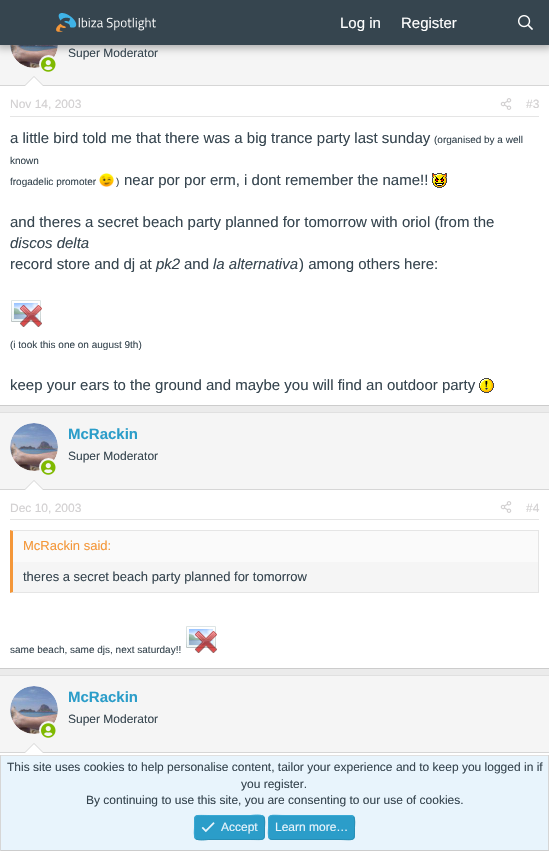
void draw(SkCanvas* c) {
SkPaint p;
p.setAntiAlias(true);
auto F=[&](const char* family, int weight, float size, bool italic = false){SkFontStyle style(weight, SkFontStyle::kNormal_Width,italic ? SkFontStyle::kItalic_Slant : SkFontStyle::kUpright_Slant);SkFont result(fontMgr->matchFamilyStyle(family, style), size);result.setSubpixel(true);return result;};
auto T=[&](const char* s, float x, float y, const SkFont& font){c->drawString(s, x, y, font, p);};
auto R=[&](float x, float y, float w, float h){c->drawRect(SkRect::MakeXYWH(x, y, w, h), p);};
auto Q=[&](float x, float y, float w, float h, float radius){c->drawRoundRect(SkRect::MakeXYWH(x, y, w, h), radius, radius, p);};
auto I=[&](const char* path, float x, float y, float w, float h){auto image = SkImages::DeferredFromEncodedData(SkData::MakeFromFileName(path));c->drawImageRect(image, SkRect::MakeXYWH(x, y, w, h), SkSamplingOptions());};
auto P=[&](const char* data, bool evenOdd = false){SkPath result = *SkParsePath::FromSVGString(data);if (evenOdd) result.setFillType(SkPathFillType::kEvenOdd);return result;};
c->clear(0xffebebeb);
p.setColor(0xfff5f5f5);
R(0,45,549,40);
p.setColor(0xffffffff);
c->drawCircle(34,44,24,p);
I("3.png",10,45,48,23);
p.setColor(0xfff5f5f5);
c->drawCircle(48.5,64.5,9.5,p);
I("4.png",41,57,15,15);
p.setColor(0x4d000000);
p.setMaskFilter(SkMaskFilter::MakeBlur(kNormal_SkBlurStyle, 4));
c->drawRect(SkRect::MakeXYWH(-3,-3,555,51),p);
p.setMaskFilter(nullptr);
p.setColor(0xff36454f);
R(0,0,549,45);
I("1.png",56,13,100,19);
auto f1 = F("Liberation Sans",400,15);
p.setColor(0xffffffff);
T("Log in",340,28,f1);
T("Register",401,28,f1);
I("2.png",518,15,15,15);
R(0,86,549,319);
p.setColor(0xffcccccc);
R(0,405,549,1);
p.setColor(0xffd6d6d6);
R(0,85,549,1);
auto f2 = F("Liberation Sans",400,12);
p.setColor(0xff36454f);
T("Super Moderator",68,57,f2);
p.setColor(0xffd6d6d6);
c->drawPath(P("M44 86h-20l10-10z"),p);
p.setColor(0xffffffff);
c->drawPath(P("M43 86h-18l9-9z"),p);
p.setColor(0xffe5e5e5);
R(10,116,529,1);
p.setColor(0xffd2d0d1);
T("Nov 14, 2003",10,108,f2);
I("5.png",500,98,12,12);
T("#3",526,108,f2);
p.setColor(0xff36454f);
T("a little bird told me that there was a big trance party last sunday",10,143,f1);
auto f3 = F("Liberation Sans",400,10);
T("(organised by a well",434,143,f3);
T("known",10,164,f3);
T("frogadelic promoter",10,185,f3);
I("6.png",99,173,15,14);
T(")",116,185,f3);
T("near por por erm, i dont remember the name!!",124,185,f1);
I("7.png",432,173,15,15);
T("and theres a secret beach party planned for tomorrow with oriol (from the",10,227,f1);
auto f4 = F("Liberation Sans",400,15,true);
T("discos delta",10,248,f4);
T("record store and dj at",10,269,f1);
T("pk2",156,269,f4);
T("and",184,269,f1);
T("la alternativa",213,269,f4);
T(") among others here:",299,269,f1);
I("8.png",11,300,31,27);
T("(i took this one on august 9th)",10,348,f3);
T("keep your ears to the ground and maybe you will find an outdoor party",10,390,f1);
I("9.png",479,378,15,15);
p.setColor(0xffffffff);
R(0,490,549,178);
p.setColor(0xffe0e0e0);
R(0,412,549,1);
p.setColor(0xffcccccc);
R(0,668,549,1);
p.setColor(0xfff5f5f5);
R(0,413,549,76);
p.setColor(0xffd6d6d6);
R(0,489,549,1);
p.setColor(0xffffffff);
c->drawCircle(34,447,24,p);
I("10.png",10,423,48,48);
p.setColor(0xfff5f5f5);
c->drawCircle(48.5,467.5,9.5,p);
I("4.png",41,460,15,15);
auto f5 = F("Liberation Sans",700,15);
p.setColor(0xff2b9dc9);
T("McRackin",68,439,f5);
p.setColor(0xff36454f);
T("Super Moderator",68,460,f2);
p.setColor(0xffd6d6d6);
c->drawPath(P("M44 490h-20l10-10z"),p);
p.setColor(0xffffffff);
c->drawPath(P("M43 490h-18l9-9z"),p);
p.setColor(0xffe5e5e5);
R(10,519,529,1);
p.setColor(0xffd2d0d1);
T("Dec 10, 2003",10,512,f2);
I("5.png",500,501,12,12);
T("#4",526,512,f2);
p.setColor(0xfff5f5f5);
R(13,562,525,30);
p.setColor(0xffe5e5e5);
c->drawPath(P("M10 530h529l-1 1h-525z"),p);
R(538,530,1,63);
c->drawPath(P("M539 593h-529l3-1h525z"),p);
p.setColor(0xfff49739);
c->drawPath(P("M10 593v-63l3 1v61z"),p);
p.setColor(0xfffafafa);
R(13,531,525,31);
auto f6 = F("Liberation Sans",400,13);
p.setColor(0xfff49739);
T("McRackin said:",23,550,f6);
p.setColor(0xff36454f);
T("theres a secret beach party planned for tomorrow",23,581,f6);
T("same beach, same djs, next saturday!!",10,653,f3);
I("8.png",186,626,31,27);
p.setColor(0xffffffff);
R(0,753,549,2);
p.setColor(0xffe0e0e0);
R(0,675,549,1);
p.setColor(0xfff5f5f5);
R(0,676,549,76);
p.setColor(0xffd6d6d6);
R(0,752,549,1);
p.setColor(0xffffffff);
c->drawCircle(34,710,24,p);
I("10.png",10,686,48,48);
p.setColor(0xfff5f5f5);
c->drawCircle(48.5,730.5,9.5,p);
I("4.png",41,723,15,15);
p.setColor(0xff2b9dc9);
T("McRackin",68,702,f5);
p.setColor(0xff36454f);
T("Super Moderator",68,723,f2);
p.setColor(0xffd6d6d6);
c->drawPath(P("M44 753h-20l10-10z"),p);
p.setColor(0xffffffff);
c->drawPath(P("M43 753h-18l9-9z"),p);
p.setColor(0xffe8f4fc);
R(1,756,547,94);
p.setColor(0xffe0e0e0);
R(0,755,549,1);
p.setColor(0xffd6d6d6);
R(548,755,1,96);
p.setColor(0xffcccccc);
R(0,850,549,1);
p.setColor(0xffd6d6d6);
R(0,755,1,96);
p.setColor(0xff36454f);
T("This site uses cookies to help personalise content, tailor your experience and to keep you logged in if",7,771,f2);
T("you register.",241,788,f2);
T("By continuing to use this site, you are consenting to our use of cookies.",86,804,f2);
p.setColor(0xff2b9dc9);
Q(194,815,71,25,4);
p.setStroke(true);
p.setStrokeWidth(1);
p.setColor(0xff278db4);
c->drawPath(P("M263.5 816.5c2 2.5 1 8.5 1 11c0 14 1 12-14 12h-42c-1 0-10.5 1.5-13-1"),p);
p.setColor(0xff39a9d5);
c->drawPath(P("M195.5 838.5c-2-2.5-1-8.5-1-11c0-14-1-12 14-12h42c1 0 10.5-1.5 13 1"),p);
I("11.png",201,822,14,11);
p.setStroke(false);
p.setColor(0xffe8f4fc);
T("Accept",221,831,f2);
p.setColor(0xff2b9dc9);
Q(268,815,87,25,4);
p.setStroke(true);
p.setColor(0xff278db4);
c->drawPath(P("M353.5 816.5c2 2.5 1 8.5 1 11c0 15 .5 12-16.5 12h-66l-2.5-1"),p);
p.setColor(0xff39a9d5);
c->drawPath(P("M269.5 838.5c-2-2.5-1-8.5-1-11c0-15-.5-12 16.5-12h66l2.5 1"),p);
p.setStroke(false);
p.setColor(0xffe8f4fc);
T("Learn more…",275,831,f2);
}
